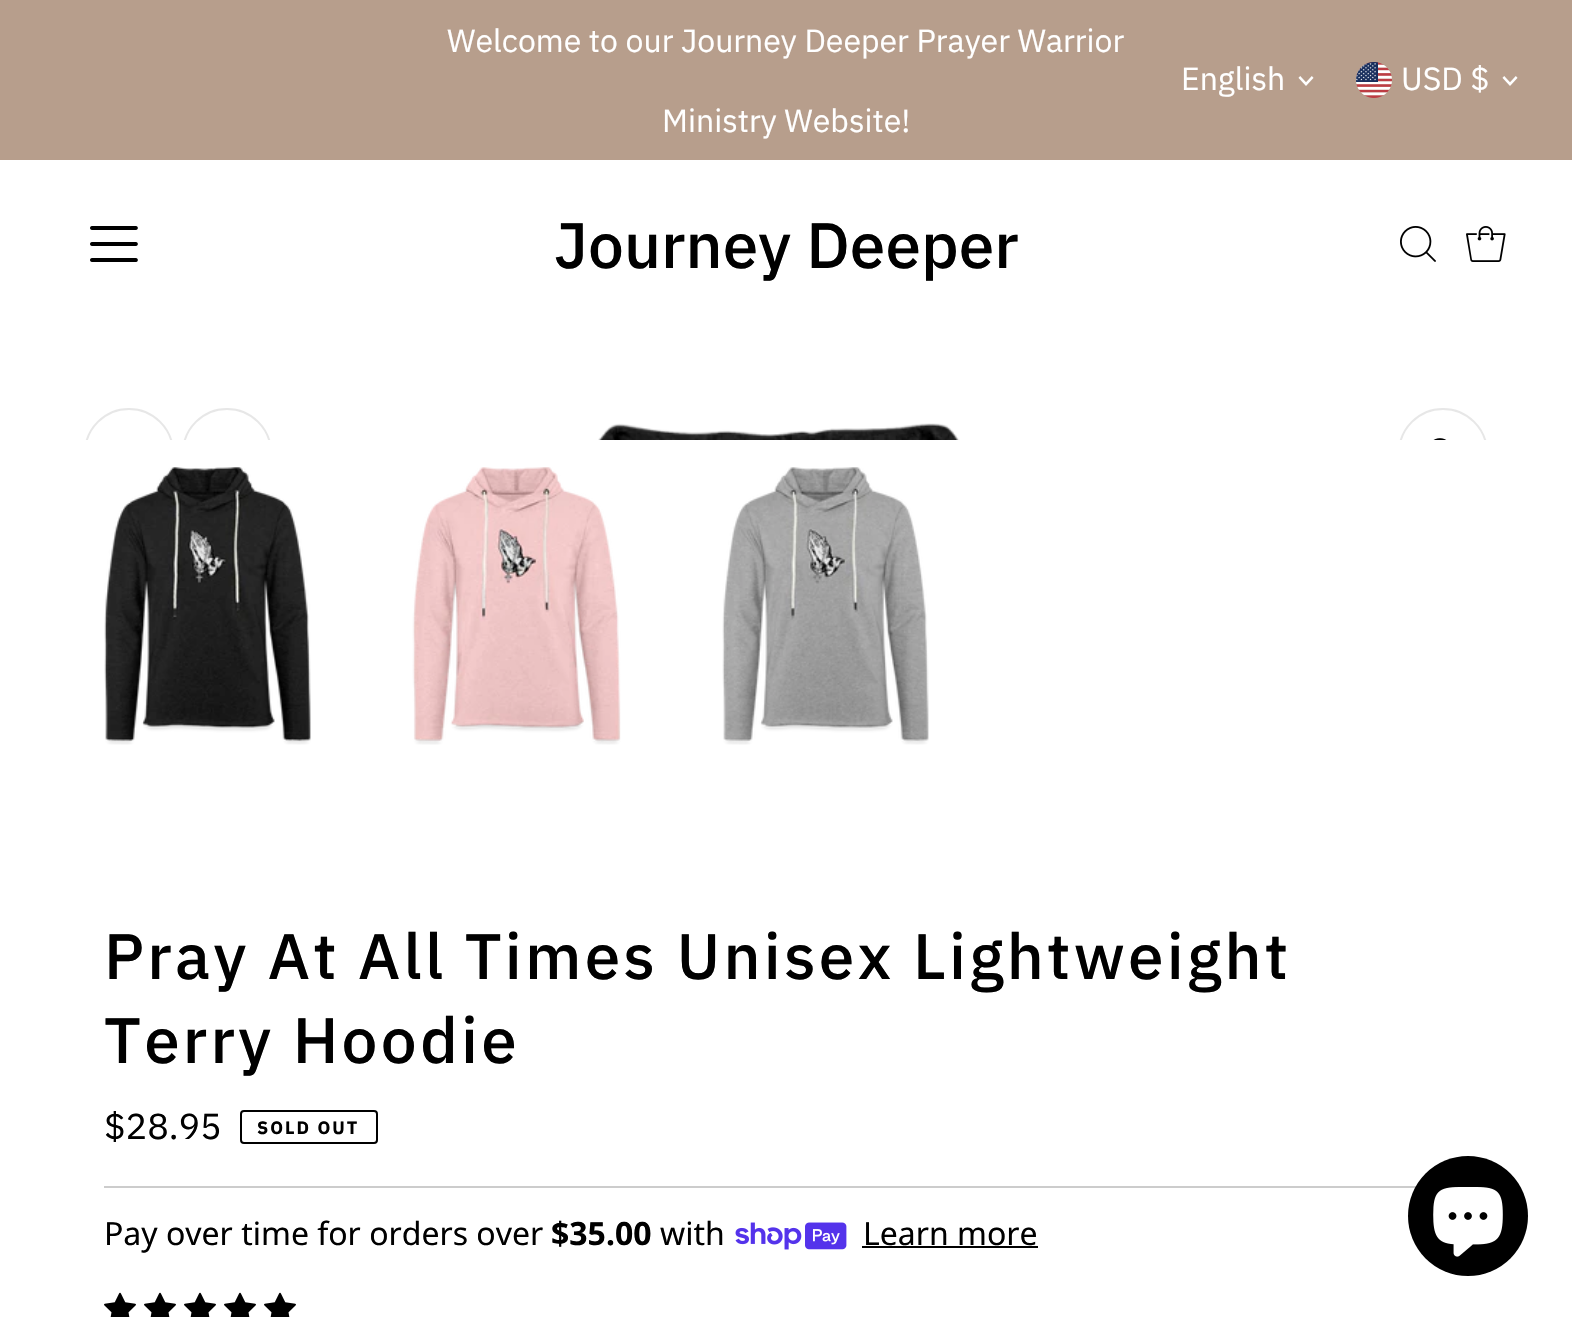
void draw(SkCanvas* c) {
SkPaint p;
p.setAntiAlias(true);
auto F=[&](const char* family, int weight, float size, bool italic = false){SkFontStyle style(weight, SkFontStyle::kNormal_Width,italic ? SkFontStyle::kItalic_Slant : SkFontStyle::kUpright_Slant);SkFont result(fontMgr->matchFamilyStyle(family, style), size);result.setSubpixel(true);return result;};
auto T=[&](const char* s, float x, float y, const SkFont& font){c->drawString(s, x, y, font, p);};
auto L=[&](const char* s, float x, float y, const SkFont& font, const SkPaint& ink, float letter, float word){std::vector<SkGlyphID> glyphs(font.countText(s, strlen(s), SkTextEncoding::kUTF8));std::vector<float> xs(glyphs.size());font.textToGlyphs(s, strlen(s), SkTextEncoding::kUTF8, glyphs);font.getXPos(glyphs, xs, x);float extra = 0;for (size_t i = 0; i < glyphs.size(); i++) {xs[i] += extra;extra += letter + word * (glyphs[i] == font.unicharToGlyph(' '));}c->drawTextBlob(SkTextBlob::MakeFromPosHGlyphs(glyphs, xs, y, font), 0, 0, ink);};
auto R=[&](float x, float y, float w, float h){c->drawRect(SkRect::MakeXYWH(x, y, w, h), p);};
auto I=[&](const char* path, float x, float y, float w, float h){auto image = SkImages::DeferredFromEncodedData(SkData::MakeFromFileName(path));c->drawImageRect(image, SkRect::MakeXYWH(x, y, w, h), SkSamplingOptions());};
c->clear(0xffffffff);
p.setColor(0xffb79e8c);
R(0,0,1572,160);
auto f1 = F("IBM Plex Sans",400,32);
p.setColor(0xffffffff);
T("Welcome to our Journey Deeper Prayer Warrior",447,52,f1);
T("Ministry Website!",662,132,f1);
T("English",1181,90,f1);
I("1.png",1298,76,16,10);
I("2.png",1356,62,36,36);
T("USD $",1401,90,f1);
I("1.png",1502,76,16,10);
I("3.png",90,226,48,36);
auto f2 = F("IBM Plex Sans",500,64);
p.setColor(0xff000000);
T("Journey Deeper",554,268,f2);
I("4.png",1400,226,36,36);
I("5.png",1466,226,40,36);
c->save();
c->clipRect(SkRect::MakeXYWH(64,388,1444,52));
p.setStroke(true);
p.setStrokeWidth(2);
p.setColor(0xffe7e7e7);
c->drawCircle(129,453,44,p);
c->drawCircle(227,453,44,p);
c->restore();
I("6.png",598,423,362,17);
c->save();
c->clipRect(SkRect::MakeXYWH(64,388,1444,52));
c->drawCircle(1443,453,44,p);
c->restore();
I("7.png",1433,438,14,2);
I("8.png",104,467,207,278);
I("9.png",412,467,209,278);
I("10.png",722,467,207,278);
p.setStroke(false);
p.setColor(0xff000000);
L("Pray At All Times Unisex Lightweight",104,979,f2,p,3.2,0);
L("Terry Hoodie",104,1063,f2,p,3.2,0);
p.setColor(0xffcccccc);
R(104,1186,1312,2);
auto f3 = F("IBM Plex Sans",400,36);
p.setColor(0xff000000);
T("$28.95",104,1139,f3);
p.setStroke(true);
c->drawRoundRect(SkRect::MakeXYWH(241,1111,136,32),3,3,p);
auto f4 = F("IBM Plex Sans",700,18);
p.setStroke(false);
L("SOLD OUT",257,1134,f4,p,2,0);
auto f5 = F("Noto Sans",400,32);
T("Pay over time for orders over",104,1245,f5);
auto f6 = F("Noto Sans",700,32);
T("$35.00",551,1245,f6);
T("with",660,1245,f5);
I("11.png",735,1222,112,28);
T("Learn more",863,1245,f5);
R(862,1246,176,2);
I("12.png",104,1292,32,25);
I("12.png",144,1292,32,25);
I("12.png",184,1292,32,25);
I("12.png",224,1292,32,25);
I("12.png",264,1292,32,25);
c->drawCircle(1468,1216,60,p);
I("13.png",1433,1187,70,70);
}
